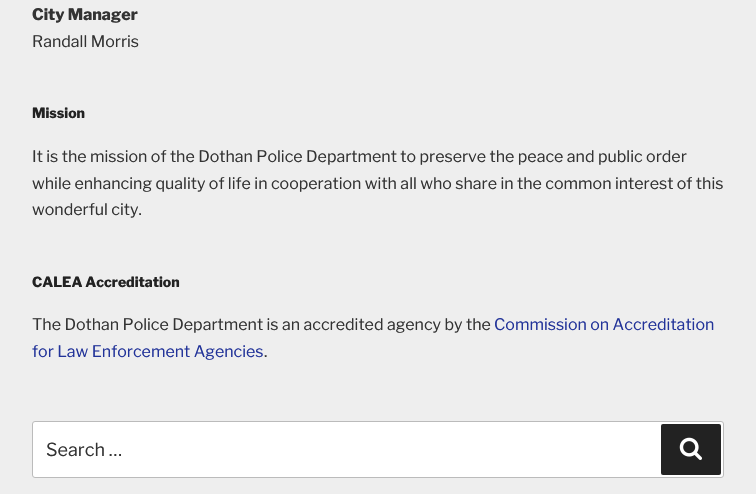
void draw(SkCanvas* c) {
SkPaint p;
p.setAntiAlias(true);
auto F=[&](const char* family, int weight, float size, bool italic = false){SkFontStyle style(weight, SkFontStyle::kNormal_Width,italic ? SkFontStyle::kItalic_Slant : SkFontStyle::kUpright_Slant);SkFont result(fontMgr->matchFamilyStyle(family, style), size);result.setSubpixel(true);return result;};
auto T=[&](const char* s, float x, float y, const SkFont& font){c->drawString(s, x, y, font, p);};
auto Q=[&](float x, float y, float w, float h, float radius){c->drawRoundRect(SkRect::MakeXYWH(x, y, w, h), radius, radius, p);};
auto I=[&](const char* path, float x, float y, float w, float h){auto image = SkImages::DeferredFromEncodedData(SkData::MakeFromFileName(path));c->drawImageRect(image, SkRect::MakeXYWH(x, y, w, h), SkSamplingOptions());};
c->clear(0xffeeeeee);
auto f1 = F("Libre Franklin",100,16);
p.setColor(0xff333333);
T("City Manager",32,20,f1);
auto f2 = F("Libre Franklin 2",100,16);
T("Randall Morris",32,47,f2);
auto f3 = F("Libre Franklin",100,14);
p.setColor(0xff222222);
T("Mission",32,118,f3);
p.setColor(0xff333333);
T("It is the mission of the Dothan Police Department to preserve the peace and public order",32,162,f2);
T("while enhancing quality of life in cooperation with all who share in the common interest of this",32,189,f2);
T("wonderful city.",32,215,f2);
p.setColor(0xff222222);
T("CALEA Accreditation",32,287,f3);
p.setColor(0xff333333);
T("The Dothan Police Department is an accredited agency by the",32,330,f2);
p.setColor(0xff223399);
T("Commission on Accreditation",494,330,f2);
T("for Law Enforcement Agencies",32,357,f2);
p.setColor(0xff333333);
T(".",264,357,f2);
p.setColor(0xffffffff);
c->drawRoundRect(SkRect::MakeXYWH(32.5,421.5,691,56),2.5,2.5,p);
p.setStroke(true);
p.setStrokeWidth(1);
p.setColor(0xffbbbbbb);
c->drawRoundRect(SkRect::MakeXYWH(32.5,421.5,691,56),2.5,2.5,p);
auto f4 = F("Libre Franklin 2",100,18);
p.setStroke(false);
p.setColor(0xff333333);
T("Search …",46,456,f4);
p.setColor(0xff222222);
Q(661,424,60,51,2);
I("1.png",679,437,23,23);
}
